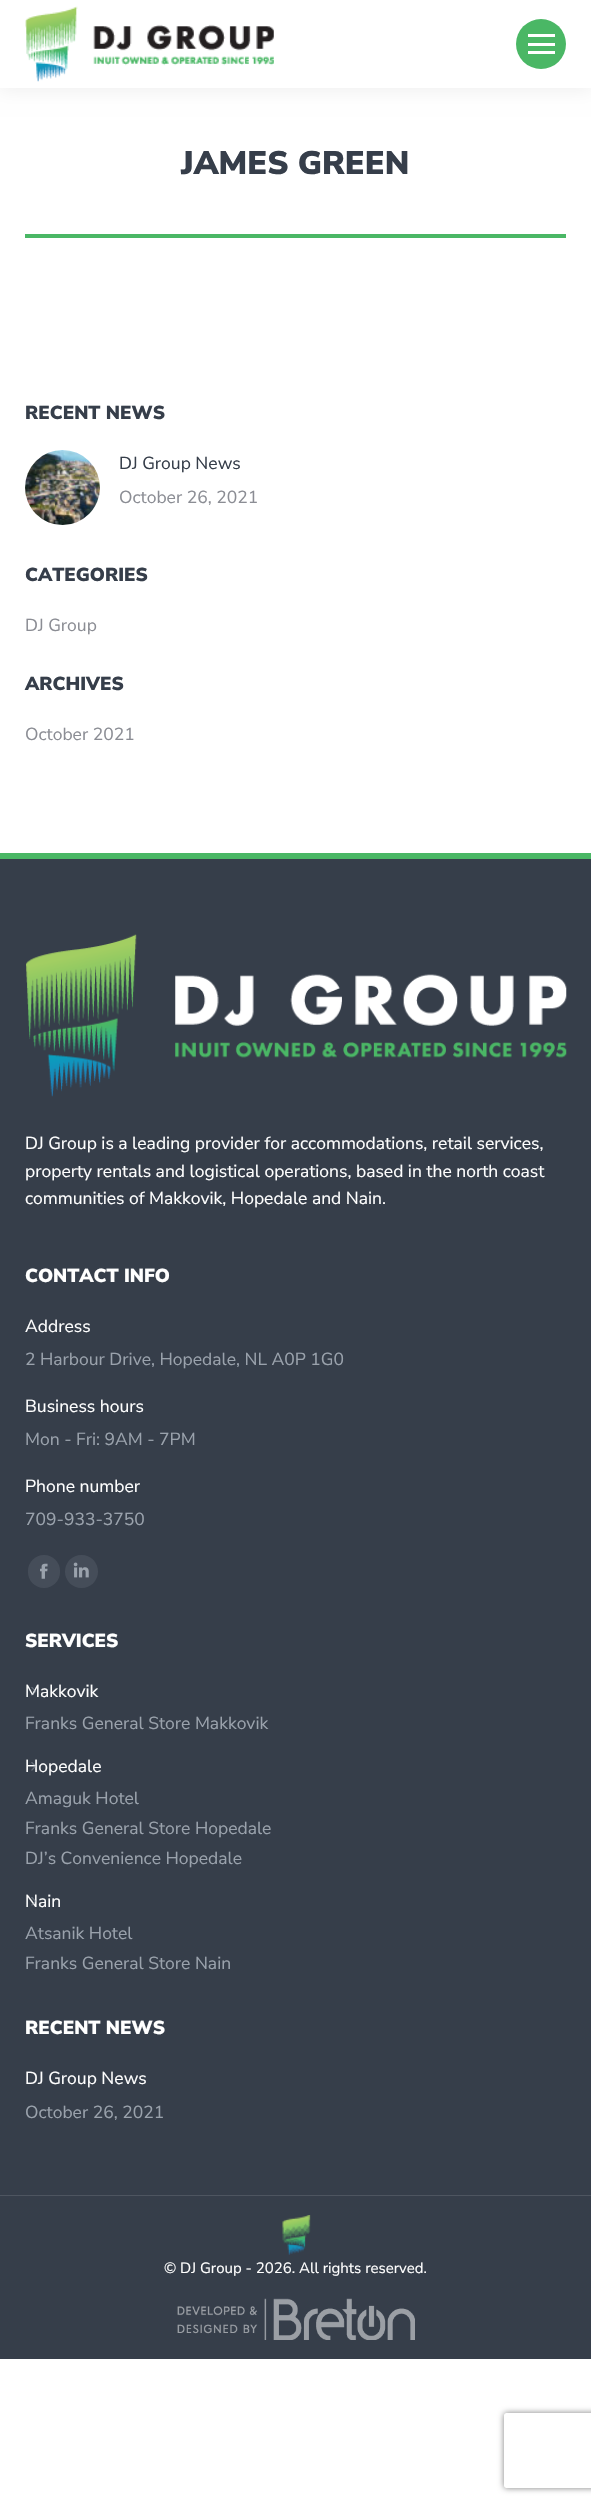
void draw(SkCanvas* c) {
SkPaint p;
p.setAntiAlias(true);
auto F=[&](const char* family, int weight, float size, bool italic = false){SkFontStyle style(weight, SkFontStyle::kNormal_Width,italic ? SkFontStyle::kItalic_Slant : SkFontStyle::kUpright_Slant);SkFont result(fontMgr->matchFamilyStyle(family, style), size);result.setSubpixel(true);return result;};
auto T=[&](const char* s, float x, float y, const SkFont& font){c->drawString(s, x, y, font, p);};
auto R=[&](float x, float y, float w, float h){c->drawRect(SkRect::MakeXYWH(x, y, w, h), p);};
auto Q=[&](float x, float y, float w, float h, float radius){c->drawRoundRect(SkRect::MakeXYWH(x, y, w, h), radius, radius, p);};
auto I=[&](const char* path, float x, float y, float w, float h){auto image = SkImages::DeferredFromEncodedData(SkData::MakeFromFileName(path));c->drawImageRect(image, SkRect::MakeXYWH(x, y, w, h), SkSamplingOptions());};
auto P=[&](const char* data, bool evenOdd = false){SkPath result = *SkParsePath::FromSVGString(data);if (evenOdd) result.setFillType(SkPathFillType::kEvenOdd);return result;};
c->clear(0xffffffff);
p.setColor(0x12000000);
p.setMaskFilter(SkMaskFilter::MakeBlur(kNormal_SkBlurStyle, 9.5));
c->drawRect(SkRect::MakeXYWH(-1,-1,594,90),p);
p.setMaskFilter(nullptr);
p.setColor(0xffffffff);
R(0,0,591,88);
I("1.png",25,6,249,76);
p.setColor(0xff4ab765);
c->drawCircle(541,44,25,p);
p.setColor(0xffffffff);
R(528,34,27,3);
R(528,43,27,3);
R(528,51,27,3);
auto f1 = F("Nunito Sans",900,32.5);
p.setColor(0xff363e4a);
T("JAMES GREEN",181,174,f1);
p.setColor(0xff4ab765);
R(25,234,541,4);
auto f2 = F("Nunito Sans",900,18.75);
p.setColor(0xff363e4a);
T("RECENT NEWS",25,419,f2);
I("2.png",25,450,75,75);
auto f3 = F("Nunito Sans",400,17.5);
T("DJ Group News",119,469,f3);
p.setColor(0xff8b8d94);
T("October 26, 2021",119,503,f3);
p.setColor(0xff363e4a);
T("CATEGORIES",25,581,f2);
p.setColor(0xff8b8d94);
T("DJ Group",25,631,f3);
p.setColor(0xff363e4a);
T("ARCHIVES",25,690,f2);
p.setColor(0xff8b8d94);
T("October 2021",25,740,f3);
p.setColor(0xff363e4a);
R(0,859,591,1500);
p.setColor(0xff4ab765);
R(0,853,591,6);
I("3.png",26,934,541,163);
p.setColor(0xffffffff);
T("DJ Group is a leading provider for accommodations, retail services,",25,1149,f3);
T("property rentals and logistical operations, based in the north coast",25,1177,f3);
T("communities of Makkovik, Hopedale and Nain.",25,1204,f3);
T("CONTACT INFO",25,1282,f2);
T("Address",25,1332,f3);
p.setColor(0xff9aa2ac);
T("2 Harbour Drive, Hopedale, NL A0P 1G0",25,1365,f3);
p.setColor(0xffffffff);
T("Business hours",25,1412,f3);
p.setColor(0xff9aa2ac);
T("Mon - Fri: 9AM - 7PM",25,1445,f3);
p.setColor(0xffffffff);
T("Phone number",25,1492,f3);
p.setColor(0xff9aa2ac);
T("709-933-3750",25,1525,f3);
p.setColor(0xff454d59);
Q(28,1555,32,33,16);
I("4.png",40,1563,8,16);
c->drawCircle(81.5,1571.5,16.5,p);
I("5.png",73,1562,16,16);
p.setColor(0xffffffff);
T("SERVICES",25,1647,f2);
T("Makkovik",25,1697,f3);
I("6.png",31,1687,6,9);
p.setColor(0xff9aa2ac);
T("Franks General Store Makkovik",25,1729,f3);
p.setColor(0xffffffff);
T("Hopedale",25,1772,f3);
I("7.png",31,1762,5,9);
p.setColor(0xff9aa2ac);
T("Amaguk Hotel",25,1804,f3);
T("Franks General Store Hopedale",25,1834,f3);
T("DJ’s Convenience Hopedale",25,1864,f3);
p.setColor(0xffffffff);
T("Nain",25,1907,f3);
I("8.png",31,1897,5,9);
p.setColor(0xff9aa2ac);
T("Atsanik Hotel",25,1939,f3);
T("Franks General Store Nain",25,1969,f3);
p.setColor(0xffffffff);
T("RECENT NEWS",25,2034,f2);
T("DJ Group News",25,2084,f3);
p.setColor(0xff9aa2ac);
T("October 26, 2021",25,2118,f3);
p.setColor(0xff4e5560);
R(0,2195,591,1);
I("9.png",282,2215,29,40);
auto f4 = F("Nunito Sans",400,15);
p.setColor(0xffffffff);
T("© DJ Group - 2026. All rights reserved.",164,2273,f4);
I("10.png",177,2298,238,42);
c->save();
c->clipPath(P("M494 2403h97v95h-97zm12.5 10h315c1.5 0 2.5 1 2.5 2.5v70c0 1.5-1 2.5-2.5 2.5h-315c-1.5 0-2.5-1-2.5-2.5v-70c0-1.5 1-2.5 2.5-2.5z",true),true);
p.setColor(0xff808080);
p.setMaskFilter(SkMaskFilter::MakeBlur(kNormal_SkBlurStyle, 3));
c->drawRoundRect(SkRect::MakeXYWH(504,2413,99,75),2.5,2.5,p);
p.setMaskFilter(nullptr);
c->restore();
}
